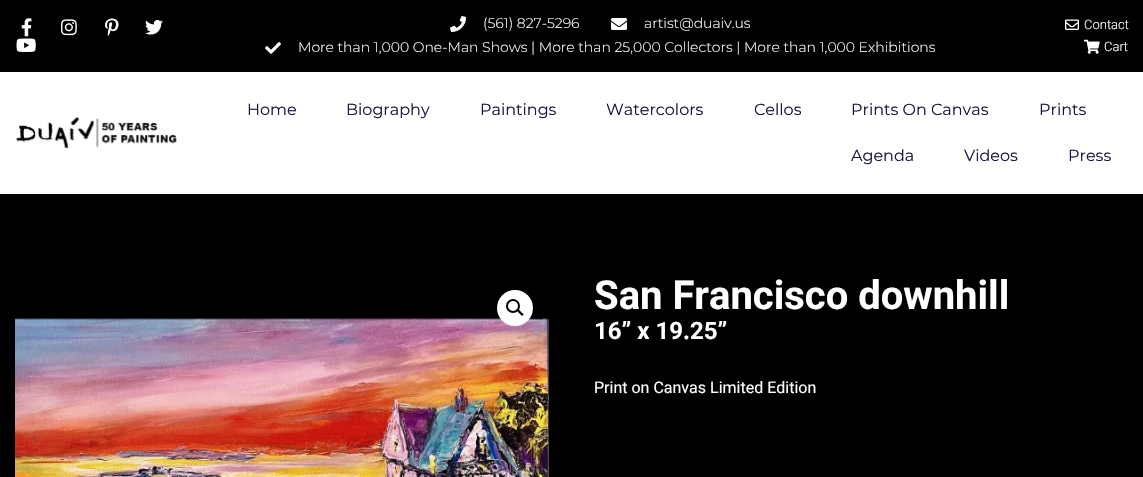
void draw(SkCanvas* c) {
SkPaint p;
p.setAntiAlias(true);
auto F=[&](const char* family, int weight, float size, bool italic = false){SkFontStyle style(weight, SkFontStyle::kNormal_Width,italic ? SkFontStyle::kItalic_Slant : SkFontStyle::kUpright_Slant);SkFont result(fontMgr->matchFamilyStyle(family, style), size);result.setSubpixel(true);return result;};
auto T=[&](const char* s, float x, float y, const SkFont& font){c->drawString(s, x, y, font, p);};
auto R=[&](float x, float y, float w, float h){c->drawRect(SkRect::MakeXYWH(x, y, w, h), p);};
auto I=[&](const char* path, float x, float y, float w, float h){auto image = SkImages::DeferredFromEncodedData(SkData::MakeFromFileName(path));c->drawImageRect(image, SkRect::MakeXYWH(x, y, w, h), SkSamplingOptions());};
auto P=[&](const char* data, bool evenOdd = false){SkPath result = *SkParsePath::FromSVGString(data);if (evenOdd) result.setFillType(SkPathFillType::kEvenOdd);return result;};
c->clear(0xff000000);
I("1.png",21,18,11,19);
I("2.png",61,19,16,17);
I("3.png",105,18,14,18);
I("4.png",145,19,18,16);
I("5.png",16,38,20,14);
I("6.png",450,16,16,16);
auto f1 = F("Montserrat",300,14);
p.setColor(0xffffffff);
T("(561) 827-5296",483,28,f1);
I("7.png",611,18,16,12);
T("artist@duaiv.us",644,28,f1);
I("8.png",265,42,16,12);
T("More than 1,000 One-Man Shows | More than 25,000 Collectors | More than 1,000 Exhibitions",298,52,f1);
I("9.png",1065,19,14,11);
auto f2 = F("Roboto",300,13);
T("Contact",1084,29,f2);
I("10.png",1084,39,16,15);
T("Cart",1104,51,f2);
R(0,72,1143,122);
I("11.png",16,117,161,31);
auto f3 = F("Montserrat",400,16);
p.setColor(0xff16163f);
T("Home",247,115,f3);
T("Biography",346,115,f3);
T("Paintings",480,115,f3);
T("Watercolors",606,115,f3);
T("Cellos",754,115,f3);
T("Prints On Canvas",851,115,f3);
T("Prints",1039,115,f3);
T("Agenda",851,161,f3);
T("Videos",964,161,f3);
T("Press",1068,161,f3);
I("12.png",15,317,534,160);
p.setColor(0xffffffff);
c->drawCircle(515,308,18,p);
p.setStroke(true);
p.setStrokeWidth(2);
p.setColor(0xff000000);
c->drawCircle(513,306,6,p);
p.setStroke(false);
c->drawPath(P("M517.5 310c1-1.5 3 1.5 3.5 2c.5 .5 3.5 2 2 3.5c-1 1-3-1.5-3.5-2c-.5-1-3.5-2.5-2-3.5z"),p);
auto f4 = F("Roboto",700,40);
p.setColor(0xffffffff);
T("San Francisco downhill",594,309,f4);
auto f5 = F("Roboto",700,24);
T("16” x 19.25”",594,339,f5);
auto f6 = F("Roboto",400,16);
T("Print on Canvas Limited Edition",594,393,f6);
}
